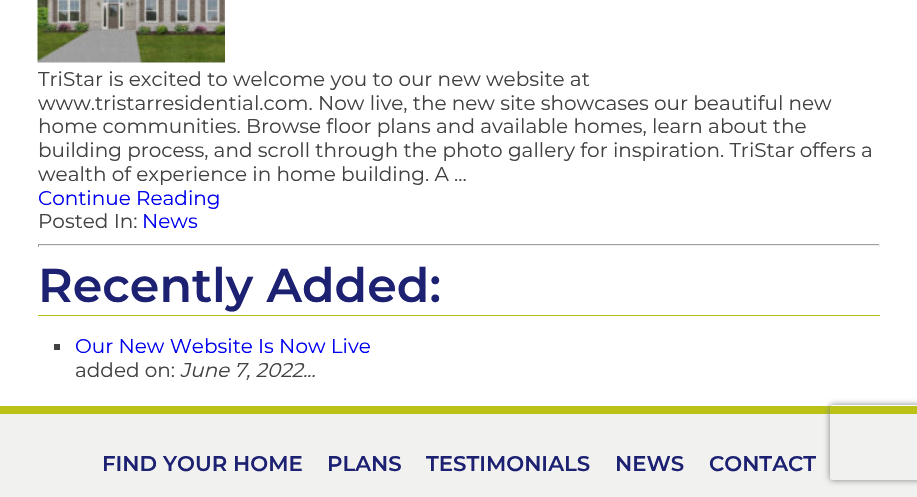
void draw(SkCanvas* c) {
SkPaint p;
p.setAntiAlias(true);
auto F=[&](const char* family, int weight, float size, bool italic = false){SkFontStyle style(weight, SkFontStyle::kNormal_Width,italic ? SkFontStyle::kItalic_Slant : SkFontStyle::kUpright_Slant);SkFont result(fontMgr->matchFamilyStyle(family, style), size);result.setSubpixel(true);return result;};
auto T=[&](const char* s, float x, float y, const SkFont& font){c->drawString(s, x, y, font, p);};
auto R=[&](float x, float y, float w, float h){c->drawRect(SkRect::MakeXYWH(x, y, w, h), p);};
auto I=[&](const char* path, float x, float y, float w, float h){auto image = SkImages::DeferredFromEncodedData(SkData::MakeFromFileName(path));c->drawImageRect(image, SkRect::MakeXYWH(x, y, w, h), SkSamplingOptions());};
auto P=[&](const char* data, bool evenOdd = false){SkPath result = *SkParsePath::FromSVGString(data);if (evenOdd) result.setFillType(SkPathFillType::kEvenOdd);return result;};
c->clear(0xffffffff);
I("1.png",37,0,188,63);
auto f1 = F("Montserrat",400,20);
p.setColor(0xff424242);
T("TriStar is excited to welcome you to our new website at",38,86,f1);
T("www.tristarresidential.com. Now live, the new site showcases our beautiful new",38,110,f1);
T("home communities. Browse floor plans and available homes, learn about the",38,133,f1);
T("building process, and scroll through the photo gallery for inspiration. TriStar offers a",38,157,f1);
T("wealth of experience in home building. A ...",38,181,f1);
p.setColor(0xff0000ee);
T("Continue Reading",38,205,f1);
p.setColor(0xff424242);
T("Posted In:",38,228,f1);
p.setColor(0xff0000ee);
T("News",142,228,f1);
p.setColor(0xff9f9f9f);
R(38,244,842,1);
p.setColor(0xffeeeeee);
R(879,244,1,3);
R(38,245,842,1);
p.setColor(0xff9f9f9f);
R(38,244,1,3);
p.setColor(0xffb3bd1b);
R(38,315,842,1);
auto f2 = F("Montserrat",600,47.5);
p.setColor(0xff1d2172);
T("Recently Added:",38,302,f2);
p.setColor(0xff424242);
R(54,344,6,6);
p.setColor(0xff0000ee);
T("Our New Website Is Now Live",75,353,f1);
p.setColor(0xff424242);
T("added on:",75,377,f1);
auto f3 = F("Montserrat",400,20,true);
T("June 7, 2022...",180,377,f3);
p.setColor(0xfff1f1f0);
R(0,414,917,83);
p.setColor(0xffb9c215);
R(0,406,917,8);
auto f4 = F("Montserrat",600,21.25);
p.setColor(0xff1d2172);
T("FIND YOUR HOME",102,471,f4);
T("PLANS",327,471,f4);
T("TESTIMONIALS",426,471,f4);
T("NEWS",615,471,f4);
T("CONTACT",709,471,f4);
c->save();
c->clipPath(P("M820 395h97v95h-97zm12.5 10h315c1.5 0 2.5 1 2.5 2.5v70c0 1.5-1 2.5-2.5 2.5h-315c-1.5 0-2.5-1-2.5-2.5v-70c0-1.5 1-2.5 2.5-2.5z",true),true);
p.setColor(0xff808080);
p.setMaskFilter(SkMaskFilter::MakeBlur(kNormal_SkBlurStyle, 3));
c->drawRoundRect(SkRect::MakeXYWH(830,405,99,75),2.5,2.5,p);
p.setMaskFilter(nullptr);
c->restore();
}
